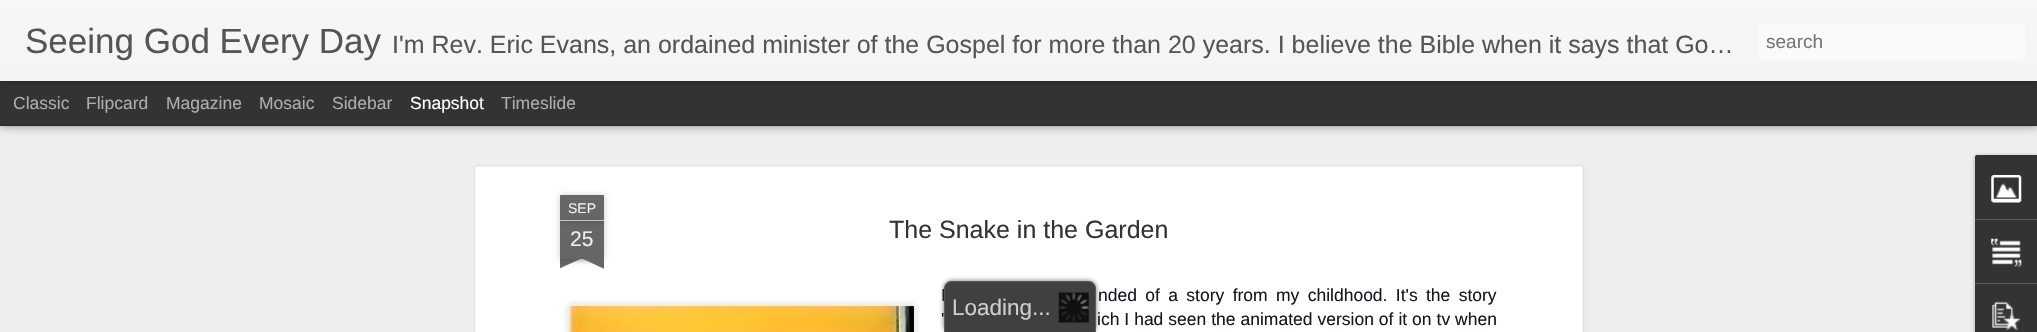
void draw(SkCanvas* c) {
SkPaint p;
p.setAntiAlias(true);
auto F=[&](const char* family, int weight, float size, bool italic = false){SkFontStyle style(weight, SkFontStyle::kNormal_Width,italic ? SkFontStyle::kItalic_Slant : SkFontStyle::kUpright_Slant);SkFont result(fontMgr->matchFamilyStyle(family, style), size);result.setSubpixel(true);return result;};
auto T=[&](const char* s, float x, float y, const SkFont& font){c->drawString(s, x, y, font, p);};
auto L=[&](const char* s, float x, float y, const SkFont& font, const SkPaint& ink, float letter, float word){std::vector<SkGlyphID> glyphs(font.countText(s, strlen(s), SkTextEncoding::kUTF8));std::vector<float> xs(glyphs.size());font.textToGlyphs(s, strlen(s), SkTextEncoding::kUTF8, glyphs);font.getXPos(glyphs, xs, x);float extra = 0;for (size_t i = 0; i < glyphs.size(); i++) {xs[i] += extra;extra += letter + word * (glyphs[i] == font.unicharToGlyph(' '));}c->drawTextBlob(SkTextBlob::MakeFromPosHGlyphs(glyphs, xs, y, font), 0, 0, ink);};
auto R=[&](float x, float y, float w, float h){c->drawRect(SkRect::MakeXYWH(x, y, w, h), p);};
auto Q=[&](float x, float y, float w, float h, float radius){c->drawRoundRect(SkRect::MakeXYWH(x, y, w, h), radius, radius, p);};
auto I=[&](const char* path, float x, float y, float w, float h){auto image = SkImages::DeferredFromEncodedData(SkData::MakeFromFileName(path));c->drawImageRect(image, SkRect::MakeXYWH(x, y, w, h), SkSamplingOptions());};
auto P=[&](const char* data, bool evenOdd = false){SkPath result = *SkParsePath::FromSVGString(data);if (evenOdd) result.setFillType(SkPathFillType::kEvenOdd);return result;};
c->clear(0xff333333);
p.setColor(0xffeeeeee);
R(0,126,2037,206);
p.setColor(0x80000000);
p.setMaskFilter(SkMaskFilter::MakeBlur(kNormal_SkBlurStyle, 5));
c->drawRect(SkRect::MakeXYWH(0,81,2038,44),p);
p.setMaskFilter(nullptr);
p.setColor(0xff333333);
R(0,81,2037,44);
p.setColor(0x4d000000);
p.setMaskFilter(SkMaskFilter::MakeBlur(kNormal_SkBlurStyle, 3));
c->drawRect(SkRect::MakeXYWH(0,0,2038,81),p);
p.setMaskFilter(nullptr);
{
const SkColor colors[] = {0xfff7f7f7,0xfff4f4f4};
const float stops[] = {0,1};
const SkPoint ends[] = {{0,0}, {0,81}};
p.setShader(SkGradientShader::MakeLinear(ends, colors, stops, 2, SkTileMode::kClamp));
p.setAlpha(255);
}
R(0,0,2037,81);
auto f1 = F("Liberation Sans",400,35);
p.setShader(nullptr);
p.setColor(0xff555555);
T("Seeing God Every Day",25,53,f1);
auto f2 = F("Liberation Sans",400,25);
T("I'm Rev. Eric Evans, an ordained minister of the Gospel for more than 20 years. I believe the Bible when it says that Go…",392,53,f2);
p.setColor(0xfffafafa);
Q(1758,23,267,37,4);
auto f3 = F("Liberation Sans",400,19);
p.setColor(0xff757575);
T("search",1766,48,f3);
auto f4 = F("Liberation Sans",400,17.5);
p.setColor(0xffadadad);
T("Classic",13,109,f4);
T("Flipcard",86,109,f4);
T("Magazine",166,109,f4);
T("Mosaic",259,109,f4);
T("Sidebar",332,109,f4);
p.setColor(0xffffffff);
T("Snapshot",410,109,f4);
p.setColor(0xffadadad);
T("Timeslide",501,109,f4);
p.setColor(0xffffffff);
R(473,164,1112,168);
I("1.png",473,164,1113,168);
p.setColor(0x33000000);
p.setMaskFilter(SkMaskFilter::MakeBlur(kNormal_SkBlurStyle, 3));
c->drawRect(SkRect::MakeXYWH(560,221,44,38),p);
p.setMaskFilter(nullptr);
p.setColor(0xff666666);
R(560,221,44,38);
p.setColor(0x33000000);
p.setMaskFilter(SkMaskFilter::MakeBlur(kNormal_SkBlurStyle, 3));
c->drawRoundRect(SkRect::MakeXYWH(560,195,44,26),1,1,p);
p.setMaskFilter(nullptr);
p.setColor(0xff666666);
c->drawPath(P("M561 195h42c.5 0 1 .5 1 1v25h-44v-25c0-.5 .5-1 1-1z"),p);
p.setColor(0xffc2c2c2);
R(560,220,44,1);
auto f5 = F("Liberation Sans",400,14);
p.setColor(0xffeeeeee);
T("SEP",568,213,f5);
auto f6 = F("Liberation Sans",400,21);
T("25",570,246,f6);
c->save();
c->clipRect(SkRect::MakeXYWH(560,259,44,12));
p.setColor(0x33000000);
p.setMaskFilter(SkMaskFilter::MakeBlur(kNormal_SkBlurStyle, 3));
c->drawRect(SkRect::MakeXYWH(549,246,62,13),p);
p.setMaskFilter(nullptr);
c->restore();
c->save();
c->clipRect(SkRect::MakeXYWH(560,259,44,12));
p.setColor(0xff666666);
c->drawPath(P("M549 260l57-26l5 11l-57 26z"),p);
c->restore();
c->save();
c->clipRect(SkRect::MakeXYWH(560,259,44,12));
p.setColor(0x33000000);
p.setMaskFilter(SkMaskFilter::MakeBlur(kNormal_SkBlurStyle, 3));
c->drawRect(SkRect::MakeXYWH(553,246,62,13),p);
p.setMaskFilter(nullptr);
c->restore();
c->save();
c->clipRect(SkRect::MakeXYWH(560,259,44,12));
p.setColor(0xff666666);
c->drawPath(P("M558 234l57 26l-6 11l-56-26z"),p);
c->restore();
p.setColor(0xff333333);
T("The Snake in the Garden",889,238,f2);
I("2.png",564,300,356,32);
I("3.png",569,306,345,26);
p.setColor(0xff141823);
L("I",941,301,f4,p,0,3.5);
L("nded of a story from my childhood. It's the story",1098,301,f4,p,0,3.5);
L("'",941,325,f4,p,0,.1);
L("ich I had seen the animated version of it on tv when",1097,325,f4,p,0,.1);
p.setColor(0x4d000000);
p.setMaskFilter(SkMaskFilter::MakeBlur(kNormal_SkBlurStyle, 2));
c->drawRoundRect(SkRect::MakeXYWH(1975,156,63,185),2.5,2.5,p);
p.setMaskFilter(nullptr);
p.setColor(0xff333333);
c->drawPath(P("M1977.5 155h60.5v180h-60.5c-1.5 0-2.5-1-2.5-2.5v-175c0-1.5 1-2.5 2.5-2.5z"),p);
c->drawPath(P("M1977.5 155h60.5v64h-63v-61.5c0-1.5 1-2.5 2.5-2.5z"),p);
I("4.png",1991,175,31,28);
p.setColor(0xff585858);
R(1975,219,62,1);
I("5.png",1991,238,31,29);
R(1975,283,62,1);
I("6.png",1992,301,29,30);
c->save();
c->clipPath(P("M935 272h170v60h-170zm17 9h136c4.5 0 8 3.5 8 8v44h-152v-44c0-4.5 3.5-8 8-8z",true),true);
p.setColor(0xbf333333);
p.setMaskFilter(SkMaskFilter::MakeBlur(kNormal_SkBlurStyle, 2.5));
c->drawRoundRect(SkRect::MakeXYWH(944,281,152,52),8,8,p);
p.setMaskFilter(nullptr);
c->restore();
p.setColor(0xbf000000);
c->drawPath(P("M952 281h136c4.5 0 8 3.5 8 8v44h-152v-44c0-4.5 3.5-8 8-8z"),p);
p.setColor(0xbf666666);
c->drawPath(P("M951 281h138c4 0 7 4 7 8v43h-152v-43c0-4 3-8 7-8zm0 1h138c3 0 6 3 6 7v43h-150v-43c0-4 3-7 6-7z",true),p);
I("7.png",1058,292,31,31);
auto f7 = F("Liberation Sans",400,22.5);
p.setColor(0xffcecece);
T("Loading",952,315,f7);
T("...",1032,315,f7);
}
